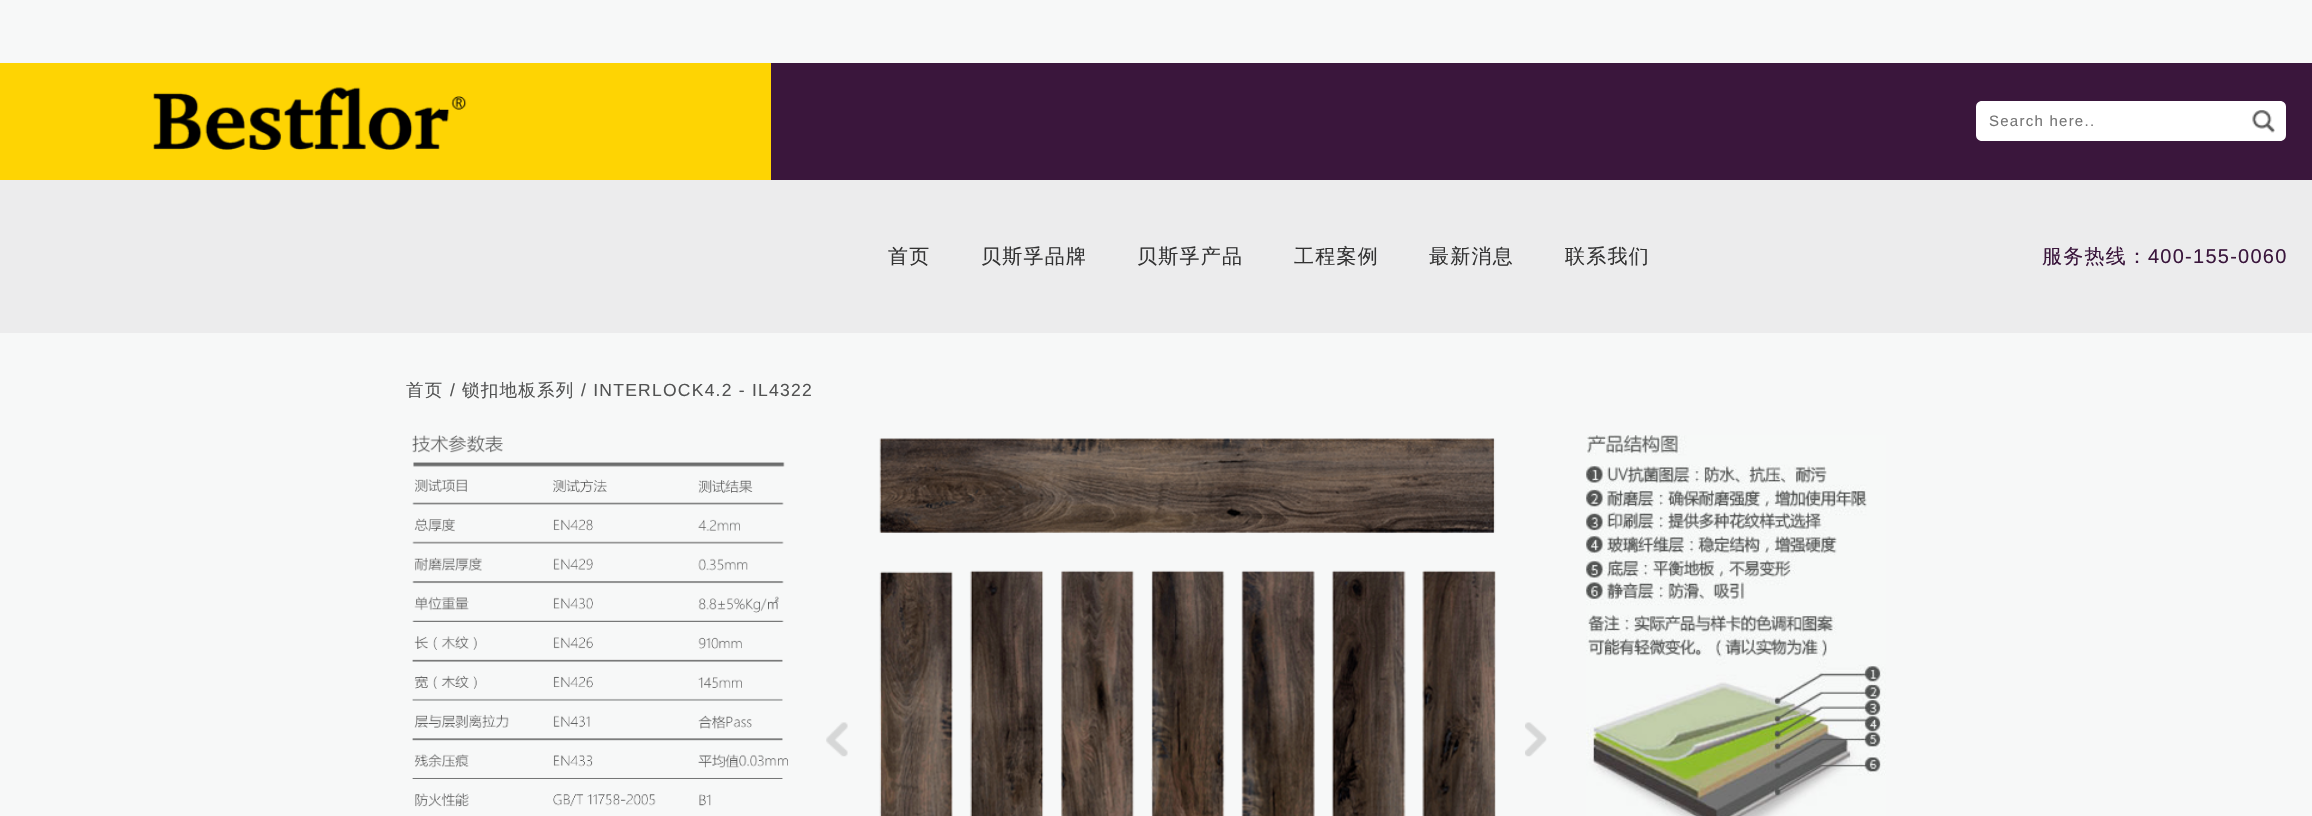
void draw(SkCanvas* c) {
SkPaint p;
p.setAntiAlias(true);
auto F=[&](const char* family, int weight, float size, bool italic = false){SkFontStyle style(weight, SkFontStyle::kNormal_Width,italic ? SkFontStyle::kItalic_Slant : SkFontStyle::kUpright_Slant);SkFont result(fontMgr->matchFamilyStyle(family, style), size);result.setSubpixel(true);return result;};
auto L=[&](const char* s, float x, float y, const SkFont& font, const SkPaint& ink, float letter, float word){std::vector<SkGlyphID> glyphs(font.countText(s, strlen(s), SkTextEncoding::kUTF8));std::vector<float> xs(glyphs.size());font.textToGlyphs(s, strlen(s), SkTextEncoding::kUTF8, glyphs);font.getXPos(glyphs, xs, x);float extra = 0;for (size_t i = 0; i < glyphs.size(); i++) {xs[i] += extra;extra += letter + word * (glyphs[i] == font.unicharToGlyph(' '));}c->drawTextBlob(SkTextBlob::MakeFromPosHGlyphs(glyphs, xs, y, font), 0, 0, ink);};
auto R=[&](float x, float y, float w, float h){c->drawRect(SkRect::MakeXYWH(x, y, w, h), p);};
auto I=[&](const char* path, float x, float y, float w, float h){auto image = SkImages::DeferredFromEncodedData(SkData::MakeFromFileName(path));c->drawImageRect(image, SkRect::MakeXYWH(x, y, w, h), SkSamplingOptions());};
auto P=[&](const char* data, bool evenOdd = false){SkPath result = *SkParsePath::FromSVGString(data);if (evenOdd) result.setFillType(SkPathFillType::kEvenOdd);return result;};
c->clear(0xfff7f8f8);
p.setColor(0xff3a163c);
R(771,63,1541,117);
p.setColor(0xfffed403);
R(0,63,771,117);
I("1.png",153,87,314,63);
p.setColor(0xffffffff);
c->drawPath(P("M1982 101h259v40h-259c-3.5 0-6-2.5-6-6v-28c0-3.5 2.5-6 6-6z"),p);
auto f1 = F("Liberation Sans",400,15);
p.setColor(0xff757575);
L("Search here..",1989,126,f1,p,1.25,0);
p.setColor(0xffffffff);
c->drawPath(P("M2241 101h39c3.5 0 6 2.5 6 6v28c0 3.5-2.5 6-6 6h-39z"),p);
I("2.png",2252,110,23,23);
p.setColor(0xffececed);
R(0,180,2312,153);
auto f2 = F("WenQuanYi Zen Hei",500,20);
p.setColor(0xff333333);
L("首页",888,263,f2,p,1.25,0);
L("贝斯孚品牌",981,263,f2,p,1.25,0);
L("贝斯孚产品",1137,263,f2,p,1.25,0);
L("工程案例",1294,263,f2,p,1.25,0);
L("最新消息",1429,263,f2,p,1.25,0);
L("联系我们",1565,263,f2,p,1.25,0);
p.setColor(0xff3a163c);
L("服务热线：",2042,263,f2,p,1.25,0);
auto f3 = F("Liberation Sans",400,20);
L("400-155-0060",2148,263,f3,p,1.25,0);
auto f4 = F("WenQuanYi Zen Hei",500,17.5);
p.setColor(0xff525353);
L("首页",406,396,f4,p,1.25,0);
auto f5 = F("Liberation Sans",400,17.5);
L("/",450,396,f5,p,1.25,0);
L("锁扣地板系列",462,396,f4,p,1.25,0);
L("/ INTERLOCK4.2 - IL4322",581,396,f5,p,1.25,0);
I("3.png",412,435,376,372);
I("4.png",879,438,617,378);
I("5.png",826,722,22,35);
I("6.png",1525,722,22,35);
I("7.png",1586,435,300,381);
}
